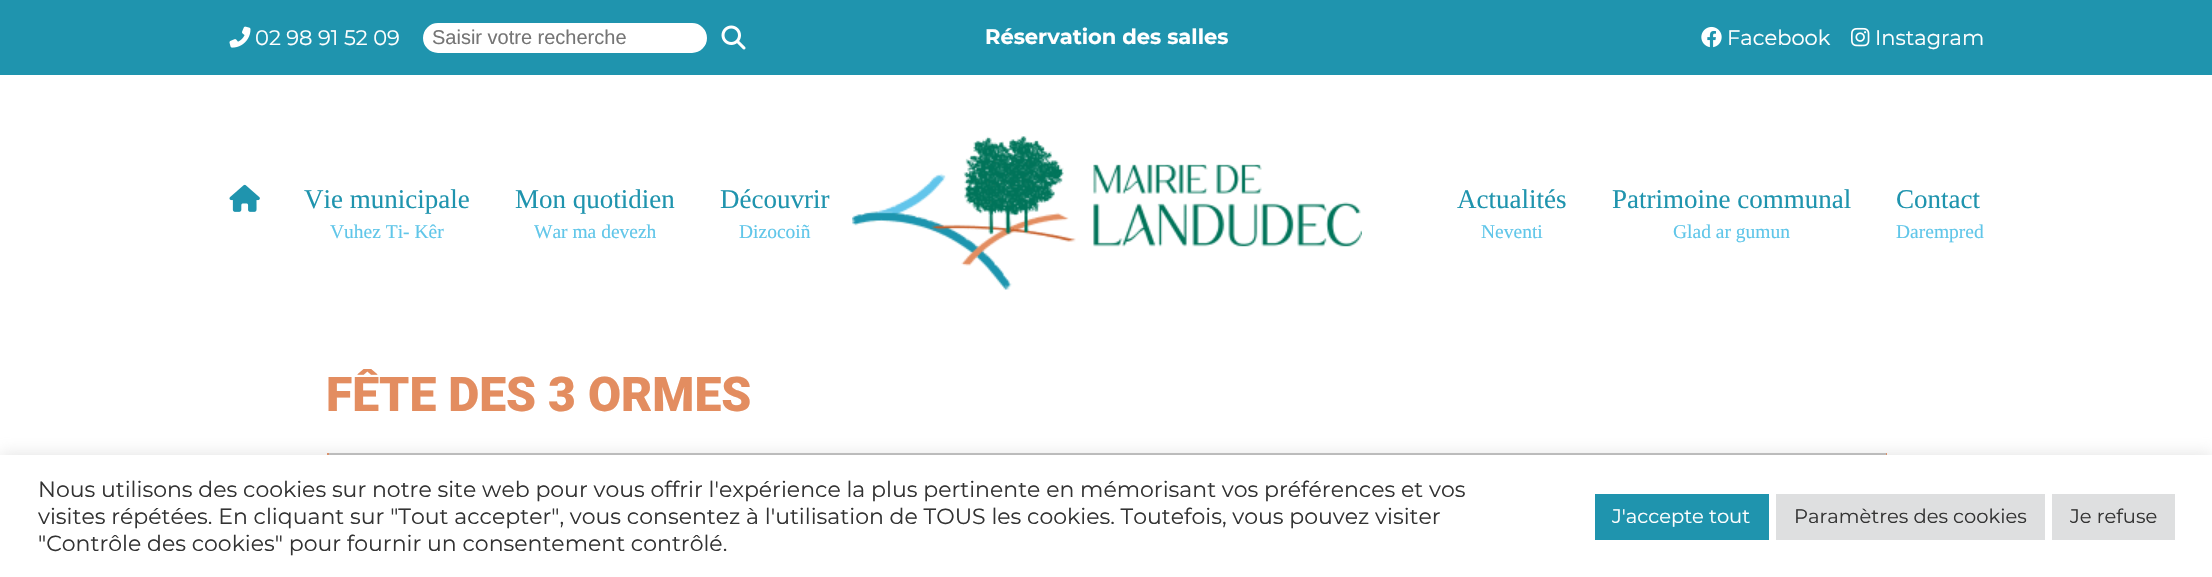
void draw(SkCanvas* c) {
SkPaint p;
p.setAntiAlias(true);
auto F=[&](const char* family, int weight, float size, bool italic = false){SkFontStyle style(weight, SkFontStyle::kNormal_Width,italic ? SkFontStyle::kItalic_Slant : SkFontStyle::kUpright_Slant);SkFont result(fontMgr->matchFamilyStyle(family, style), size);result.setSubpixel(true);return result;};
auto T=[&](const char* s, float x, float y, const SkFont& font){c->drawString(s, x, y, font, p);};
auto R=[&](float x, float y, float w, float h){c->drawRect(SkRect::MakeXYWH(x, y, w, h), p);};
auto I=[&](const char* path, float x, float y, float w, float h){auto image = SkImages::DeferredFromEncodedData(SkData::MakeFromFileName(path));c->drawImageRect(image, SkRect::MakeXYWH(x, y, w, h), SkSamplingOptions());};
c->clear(0xffffffff);
p.setColor(0xff1f94ae);
R(0,0,2212,75);
I("1.png",229,26,22,22);
auto f1 = F("Montserrat",400,21);
p.setColor(0xffffffff);
T("02 98 91 52 09",255,45,f1);
c->drawRoundRect(SkRect::MakeXYWH(424,24,282,28),14,14,p);
p.setStroke(true);
p.setStrokeWidth(2);
c->drawRoundRect(SkRect::MakeXYWH(424,24,282,28),14,14,p);
auto f2 = F("Liberation Sans",400,20);
p.setStroke(false);
p.setColor(0xff757575);
T("Saisir votre recherche",432,44,f2);
I("2.png",721,25,25,25);
auto f3 = F("Montserrat",700,21);
p.setColor(0xffffffff);
T("Réservation des salles",985,44,f3);
I("3.png",1701,26,21,22);
T("Facebook",1727,45,f1);
I("4.png",1851,27,19,20);
T("Instagram",1875,45,f1);
I("5.png",852,136,510,154);
I("6.png",229,184,31,28);
auto f4 = F("Liberation Serif",400,27);
p.setColor(0xff1f94ae);
T("Vie municipale",304,208,f4);
auto f5 = F("Liberation Serif",400,19.5);
p.setColor(0xff60c6e9);
T("Vuhez Ti- Kêr",330,238,f5);
p.setColor(0xff1f94ae);
T("Mon quotidien",515,208,f4);
p.setColor(0xff60c6e9);
T("War ma devezh",534,238,f5);
p.setColor(0xff1f94ae);
T("Découvrir",720,208,f4);
p.setColor(0xff60c6e9);
T("Dizocoiñ",739,238,f5);
p.setColor(0xff1f94ae);
T("Actualités",1457,208,f4);
p.setColor(0xff60c6e9);
T("Neventi",1481,238,f5);
p.setColor(0xff1f94ae);
T("Patrimoine communal",1612,208,f4);
p.setColor(0xff60c6e9);
T("Glad ar gumun",1673,238,f5);
p.setColor(0xff1f94ae);
T("Contact",1896,208,f4);
p.setColor(0xff60c6e9);
T("Darempred",1896,238,f5);
c->save();
c->clipRect(SkRect::MakeXYWH(327,369,1560,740));
auto f6 = F("Roboto",900,48);
p.setColor(0xffe38d60);
T("FÊTE DES 3 ORMES",326,411,f6);
c->restore();
p.setColor(0xffbfbfbf);
R(327,453,1560,2);
p.setColor(0xffe38d60);
R(1886,453,1,2);
R(327,453,2,2);
p.setColor(0x4dacabab);
p.setMaskFilter(SkMaskFilter::MakeBlur(kNormal_SkBlurStyle, 7.5));
c->drawRect(SkRect::MakeXYWH(0,453,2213,123),p);
p.setMaskFilter(nullptr);
p.setColor(0xffffffff);
R(0,455,2212,122);
auto f7 = F("Montserrat",400,22);
p.setColor(0xff333333);
T("Nous utilisons des cookies sur notre site web pour vous offrir l'expérience la plus pertinente en mémorisant vos préférences et vos",38,497,f7);
T("visites répétées. En cliquant sur \"Tout accepter\", vous consentez à l'utilisation de TOUS les cookies. Toutefois, vous pouvez visiter",38,524,f7);
T("\"Contrôle des cookies\" pour fournir un consentement contrôlé.",38,551,f7);
p.setColor(0xff1f94ae);
R(1595,494,174,46);
auto f8 = F("Montserrat",400,19.5);
p.setColor(0xffffffff);
T("J'accepte tout",1612,523,f8);
p.setColor(0xffdedfe0);
R(1776,494,269,46);
p.setColor(0xff333333);
T("Paramètres des cookies",1794,523,f8);
p.setColor(0xffdedfe0);
R(2052,494,123,46);
p.setColor(0xff333333);
T("Je refuse",2070,523,f8);
}
